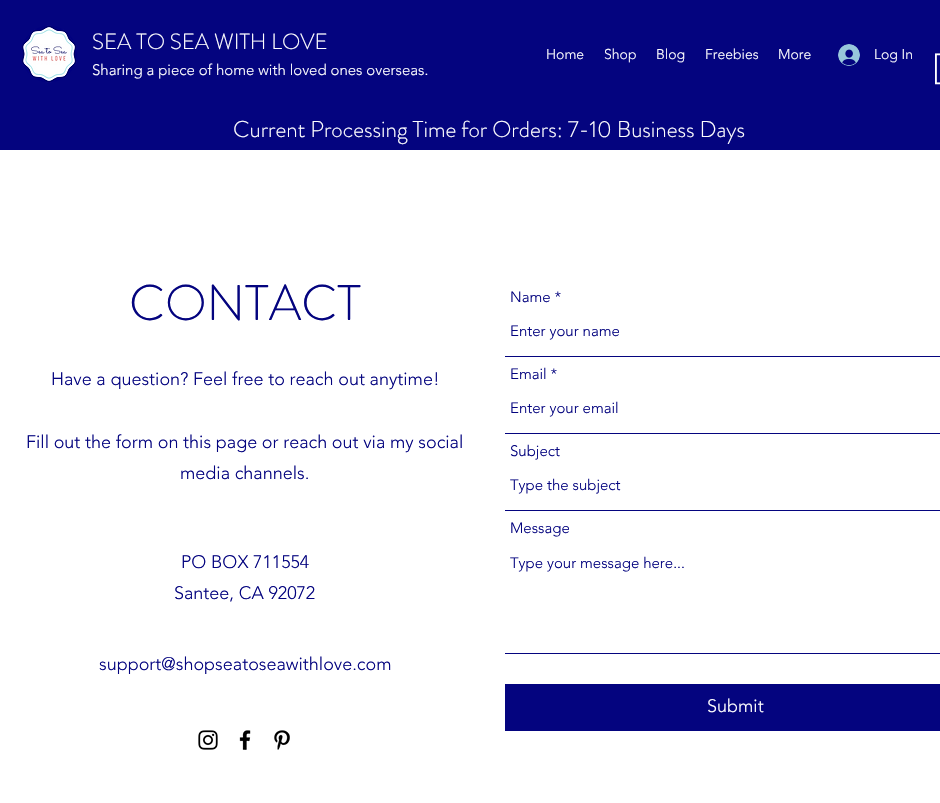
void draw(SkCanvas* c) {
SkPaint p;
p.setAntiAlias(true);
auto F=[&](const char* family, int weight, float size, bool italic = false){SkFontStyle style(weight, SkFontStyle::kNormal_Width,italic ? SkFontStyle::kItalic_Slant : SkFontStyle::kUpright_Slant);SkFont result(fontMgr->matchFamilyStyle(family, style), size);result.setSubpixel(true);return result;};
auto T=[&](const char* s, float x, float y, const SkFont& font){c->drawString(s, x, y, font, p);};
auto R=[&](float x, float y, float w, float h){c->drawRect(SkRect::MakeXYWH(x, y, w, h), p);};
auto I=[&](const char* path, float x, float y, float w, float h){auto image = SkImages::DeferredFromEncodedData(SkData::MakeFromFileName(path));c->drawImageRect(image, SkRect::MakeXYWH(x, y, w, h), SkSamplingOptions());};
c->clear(0xffffffff);
p.setColor(0xff04047f);
R(0,0,940,150);
I("1.png",22,25,55,58);
auto f1 = F("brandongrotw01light",300,22);
p.setColor(0xffffffff);
T("SEA TO SEA WITH LOVE",92,49,f1);
auto f2 = F("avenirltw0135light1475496",300,15);
T("Sharing a piece of home with loved ones overseas.",92,75,f2);
auto f3 = F("avenirltw0135light1475496",300,14);
T("Home",546,59,f3);
T("Shop",604,59,f3);
T("Blog",656,59,f3);
T("Freebies",705,59,f3);
T("More",778,59,f3);
I("2.png",838,44,22,22);
T("Log In",874,59,f3);
I("3.png",935,53,5,32);
auto f4 = F("brandongrotw01light",300,23);
T("Current Processing Time for Orders: 7-10 Business Days",233,137,f4);
auto f5 = F("brandongrotw01light",300,50);
p.setColor(0xff04047f);
T("CONTACT",129,320,f5);
auto f6 = F("avenirltw0135light1475496",300,18);
T("Have a question? Feel free to reach out anytime!",51,385,f6);
T("Fill out the form on this page or reach out via my social",26,448,f6);
T("media channels.",180,479,f6);
T("PO BOX 711554",181,568,f6);
T("Santee, CA 92072",174,599,f6);
T("support@shopseatoseawithlove.com",99,670,f6);
I("4.png",198,730,20,20);
I("5.png",239,730,12,20);
I("6.png",274,730,16,20);
T("Name *",510,302,f2);
R(505,356,435,1);
T("Enter your name",510,336,f2);
T("Email *",510,379,f2);
R(505,433,435,1);
T("Enter your email",510,413,f2);
T("Subject",510,456,f2);
R(505,510,435,1);
T("Type the subject",510,490,f2);
T("Message",510,533,f2);
R(505,653,435,1);
T("Type your message here...",510,568,f2);
R(505,684,435,47);
p.setColor(0xffffffff);
T("Submit",707,712,f6);
}
